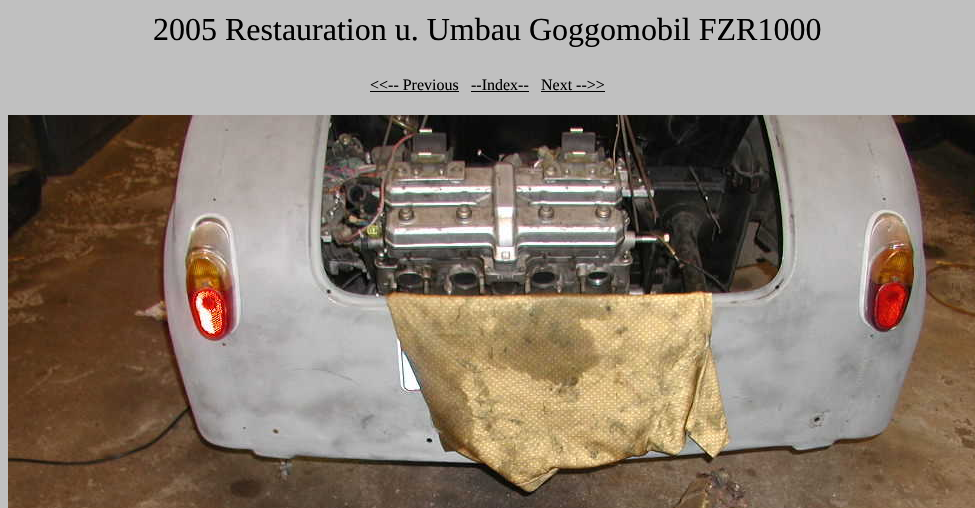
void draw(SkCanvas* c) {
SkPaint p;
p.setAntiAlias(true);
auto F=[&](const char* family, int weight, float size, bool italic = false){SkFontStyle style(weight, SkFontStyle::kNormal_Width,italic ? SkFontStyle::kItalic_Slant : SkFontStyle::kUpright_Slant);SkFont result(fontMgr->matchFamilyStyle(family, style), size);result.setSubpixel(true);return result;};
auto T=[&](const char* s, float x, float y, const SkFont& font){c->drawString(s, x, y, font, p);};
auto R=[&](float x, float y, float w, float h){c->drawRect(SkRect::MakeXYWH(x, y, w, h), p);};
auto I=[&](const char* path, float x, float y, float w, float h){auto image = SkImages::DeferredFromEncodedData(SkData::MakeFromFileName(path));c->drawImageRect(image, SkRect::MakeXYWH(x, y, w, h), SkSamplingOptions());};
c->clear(0xffc0c0c0);
auto f1 = F("Liberation Serif",400,32);
p.setColor(0xff000000);
T("2005 Restauration u. Umbau Goggomobil FZR1000",153,40,f1);
auto f2 = F("Liberation Serif",400,16);
T("<<-- Previous",370,90,f2);
R(370,91,89,1);
T("--Index--",471,90,f2);
R(471,91,58,1);
T("Next -->>",541,90,f2);
R(541,91,64,1);
I("1.png",8,115,967,393);
}
